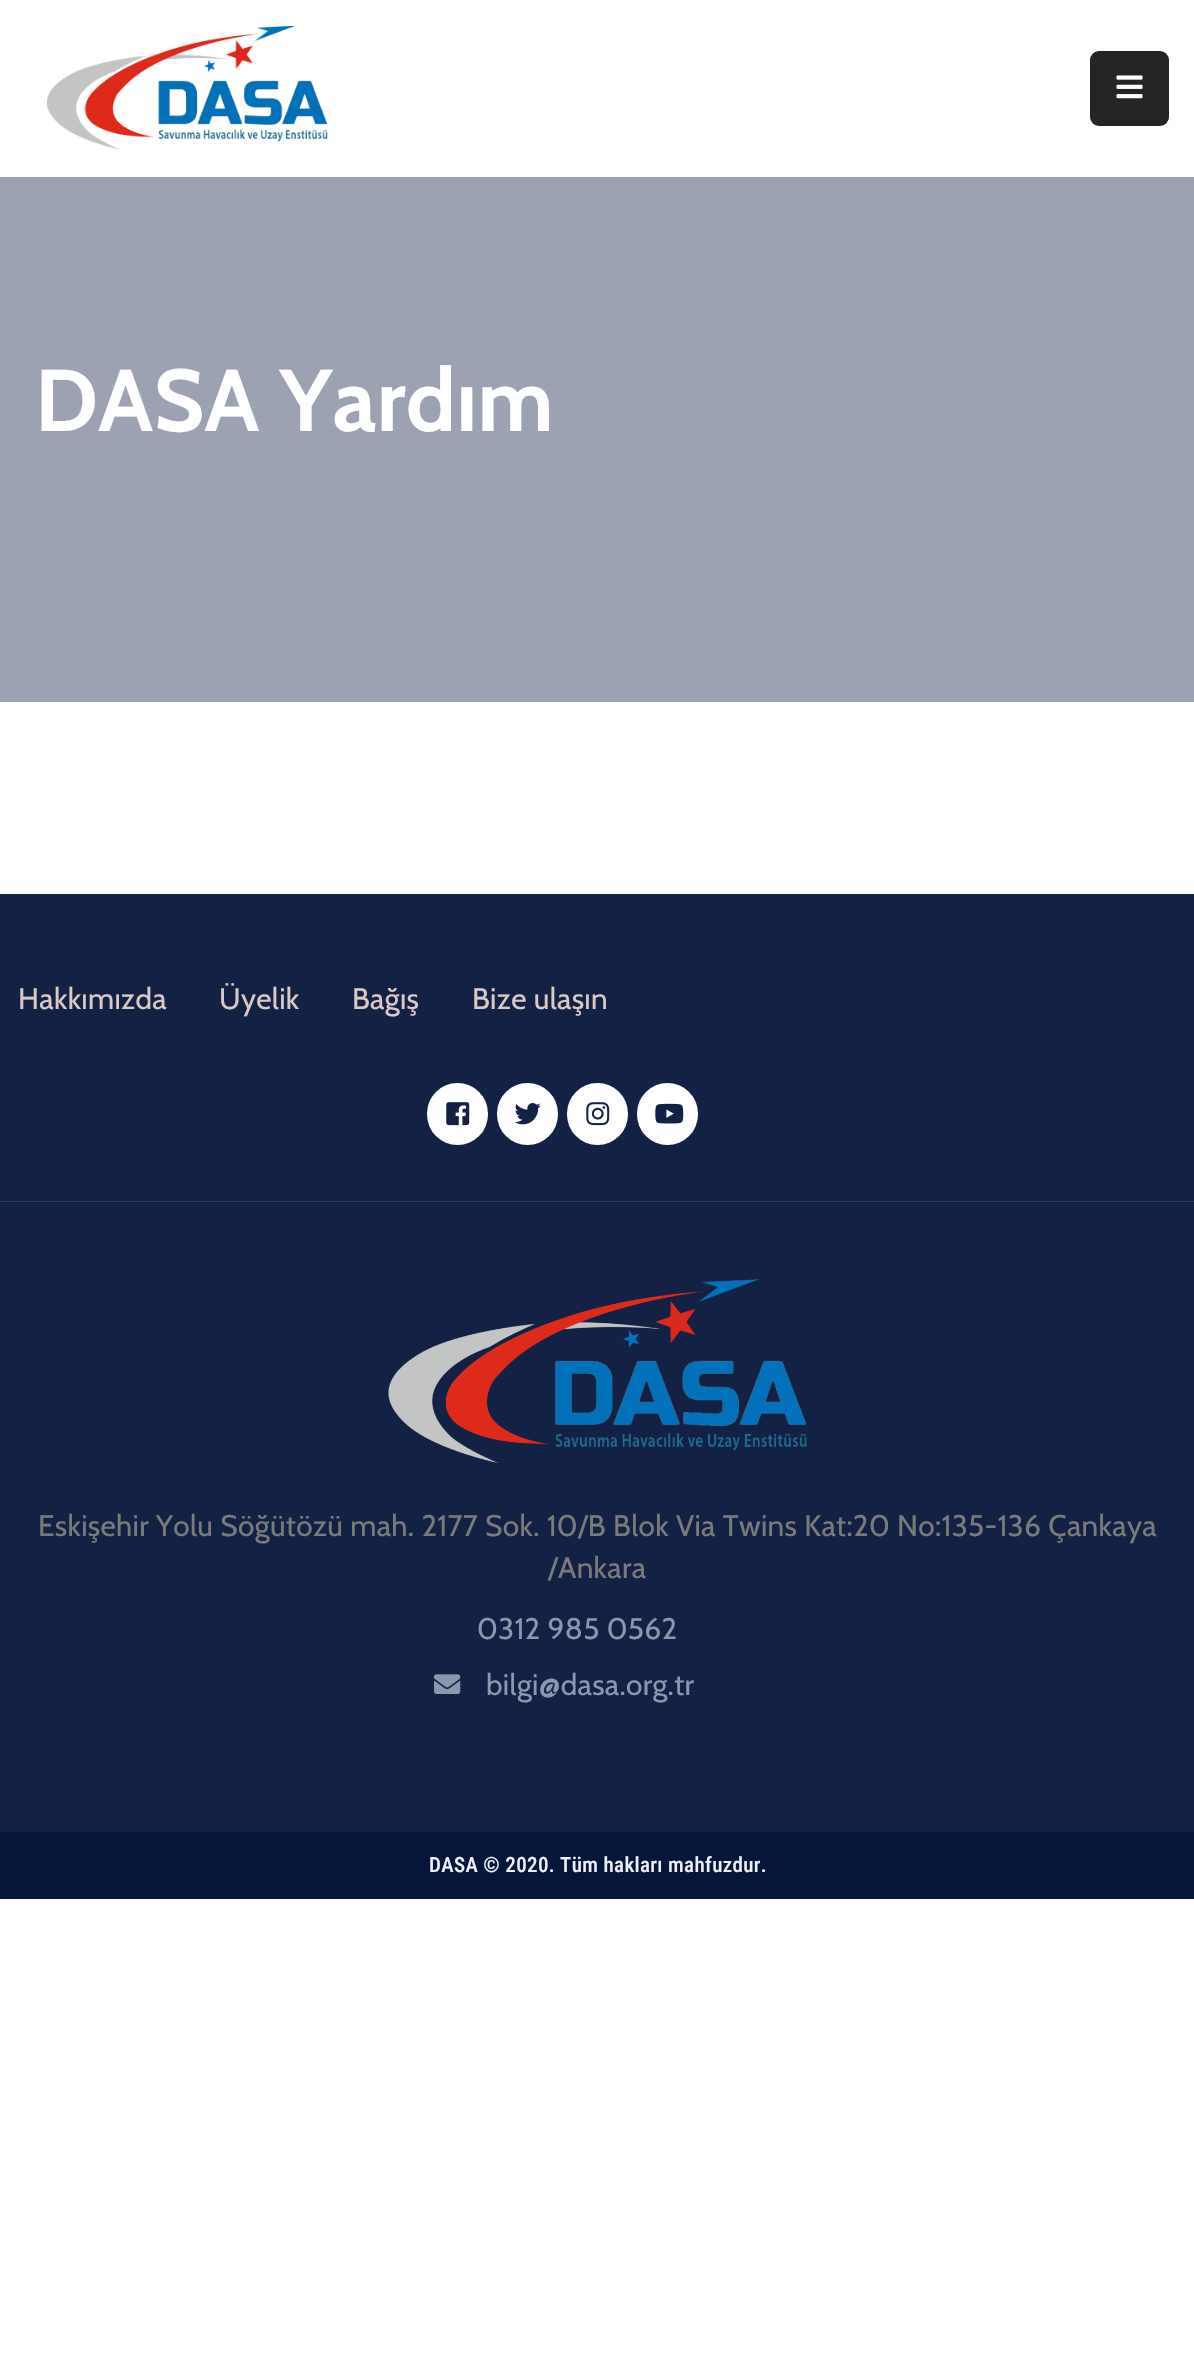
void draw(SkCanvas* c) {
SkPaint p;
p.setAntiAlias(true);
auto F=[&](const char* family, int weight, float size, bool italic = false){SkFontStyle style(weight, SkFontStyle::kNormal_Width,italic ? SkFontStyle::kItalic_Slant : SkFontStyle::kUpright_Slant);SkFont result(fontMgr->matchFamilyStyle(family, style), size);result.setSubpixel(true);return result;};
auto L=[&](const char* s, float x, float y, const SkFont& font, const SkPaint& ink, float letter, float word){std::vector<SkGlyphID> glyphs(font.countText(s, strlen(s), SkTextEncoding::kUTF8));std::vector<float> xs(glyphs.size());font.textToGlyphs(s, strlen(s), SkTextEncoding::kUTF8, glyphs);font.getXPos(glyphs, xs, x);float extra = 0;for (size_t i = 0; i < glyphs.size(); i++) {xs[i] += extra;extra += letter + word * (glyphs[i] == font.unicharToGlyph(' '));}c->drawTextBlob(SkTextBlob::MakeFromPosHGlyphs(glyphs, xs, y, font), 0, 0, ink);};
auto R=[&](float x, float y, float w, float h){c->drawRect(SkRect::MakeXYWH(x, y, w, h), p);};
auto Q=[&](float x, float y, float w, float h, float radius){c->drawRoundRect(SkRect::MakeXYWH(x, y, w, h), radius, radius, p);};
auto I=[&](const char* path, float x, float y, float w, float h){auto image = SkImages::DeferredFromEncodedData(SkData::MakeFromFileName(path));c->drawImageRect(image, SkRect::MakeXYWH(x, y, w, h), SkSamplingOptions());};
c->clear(0xffffffff);
I("1.png",46,25,282,125);
p.setColor(0xff242424);
Q(1090,51,79,75,9);
I("2.png",1116,75,27,24);
p.setColor(0xff9ca2b1);
R(0,177,1194,525);
auto f1 = F("Cabin",700,87.5);
p.setColor(0xffffffff);
L("DASA Yardım",35,431,f1,p,.35,0);
p.setColor(0xff132244);
R(0,894,1194,307);
p.setColor(0xff263a65);
R(0,1201,1194,1);
auto f2 = F("Cabin",400,29.75);
p.setColor(0xffdac9c5);
L("Hakkımızda",18,1009,f2,p,.35,0);
L("Üyelik",219,1009,f2,p,.35,0);
L("Bağış",352,1009,f2,p,.35,0);
L("Bize ulaşın",472,1009,f2,p,.35,0);
p.setColor(0xffffffff);
Q(427,1083,61,62,30.5);
I("3.png",446,1102,24,24);
Q(497,1083,61,62,30.5);
I("4.png",514,1103,27,22);
Q(567,1083,61,62,30.5);
I("5.png",586,1102,24,24);
Q(637,1083,61,62,30.5);
I("6.png",655,1103,29,21);
p.setColor(0xff132244);
R(0,1202,1194,630);
I("7.png",388,1279,419,184);
p.setColor(0xff7a7a7a);
L("Eskişehir Yolu Söğütözü mah. 2177 Sok. 10/B Blok Via Twins Kat:20 No:135-136 Çankaya",38,1536,f2,p,.35,0);
L("/Ankara",548,1578,f2,p,.35,0);
p.setColor(0xff8c96ac);
L("0312 985 0562",477,1639,f2,p,.35,0);
I("8.png",434,1674,27,20);
L("bilgi@dasa.org.tr",486,1695,f2,p,.35,0);
p.setColor(0xff06163a);
R(0,1832,1194,67);
auto f3 = F("Roboto Condensed",500,21);
p.setColor(0xffeff1f6);
L("DASA © 2020. Tüm hakları mahfuzdur.",429,1872,f3,p,.35,0);
}
